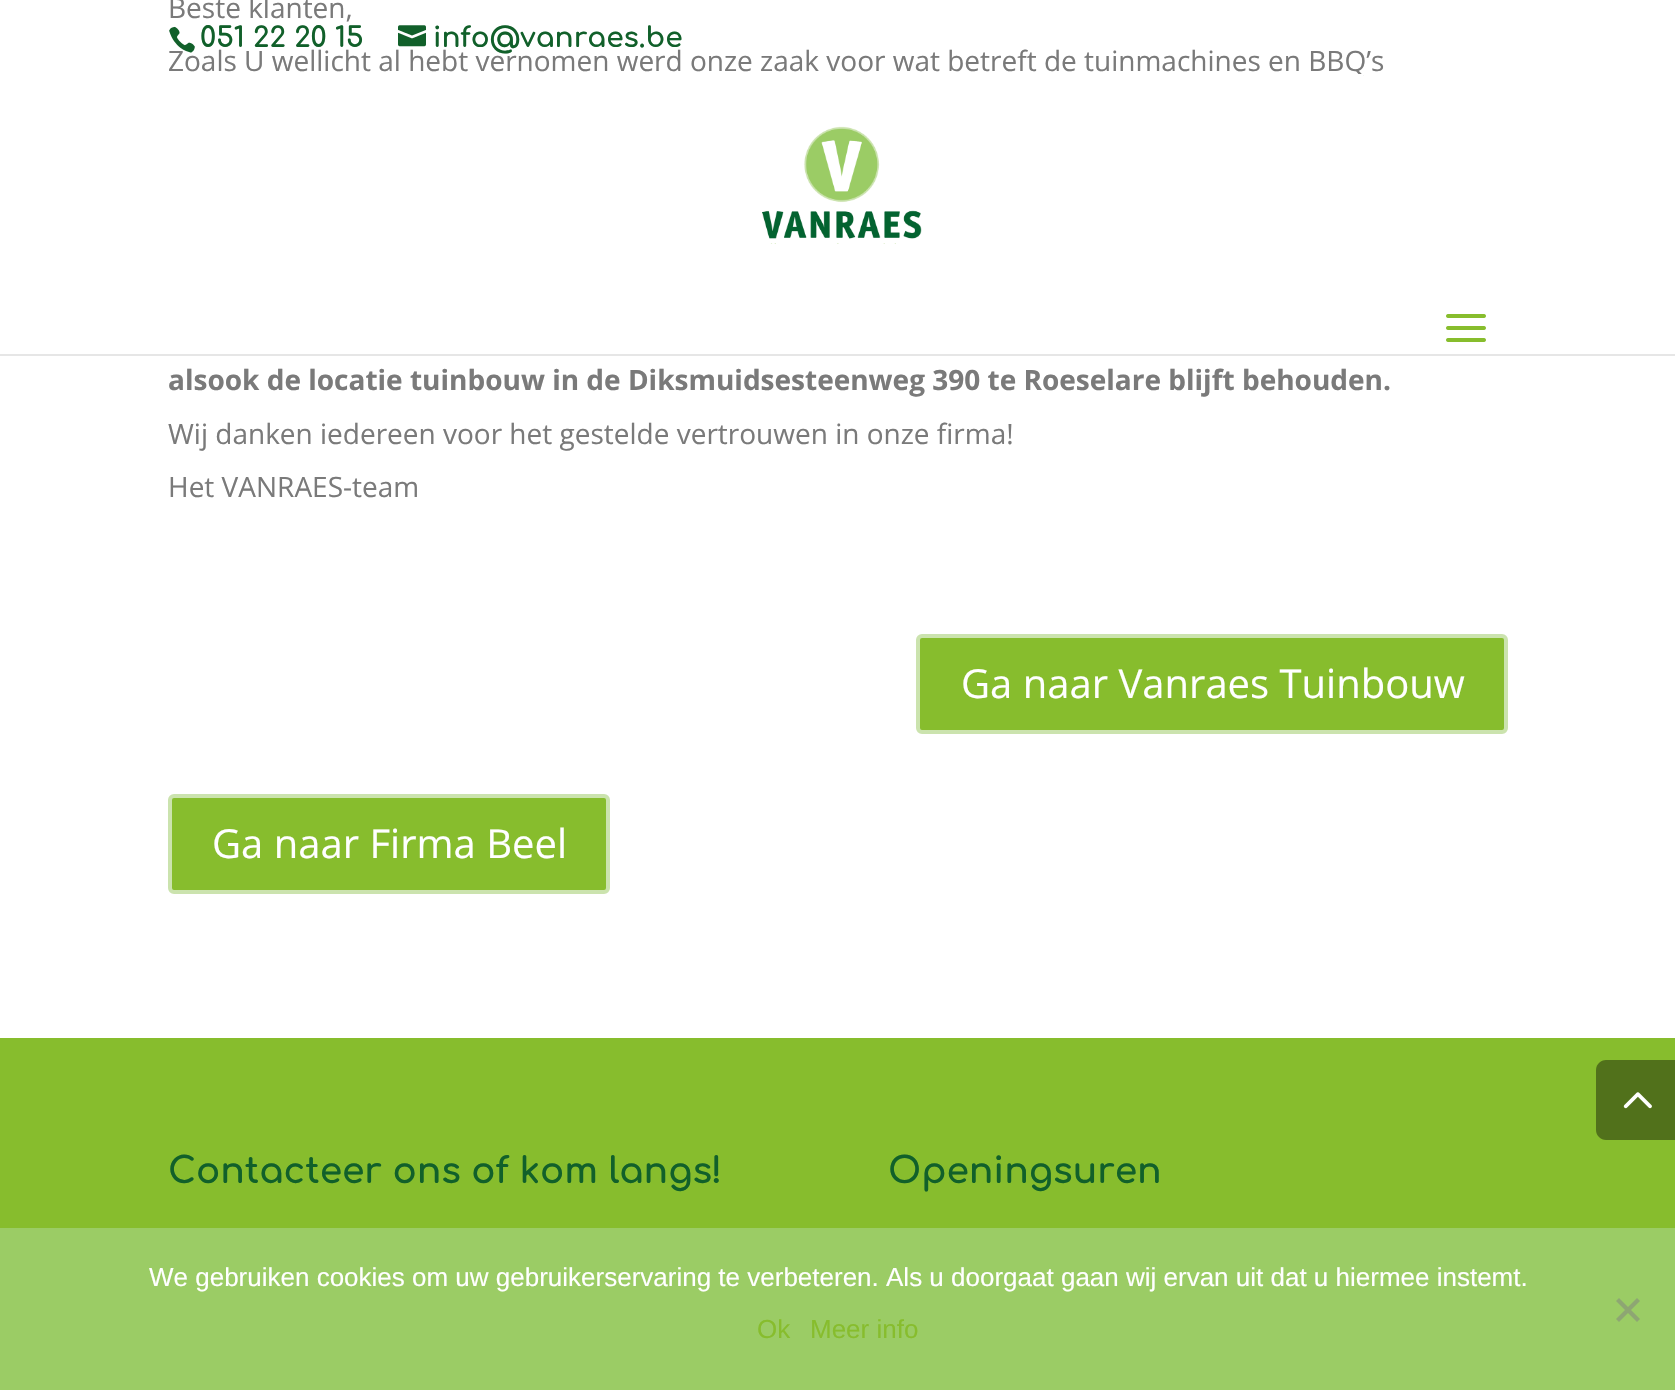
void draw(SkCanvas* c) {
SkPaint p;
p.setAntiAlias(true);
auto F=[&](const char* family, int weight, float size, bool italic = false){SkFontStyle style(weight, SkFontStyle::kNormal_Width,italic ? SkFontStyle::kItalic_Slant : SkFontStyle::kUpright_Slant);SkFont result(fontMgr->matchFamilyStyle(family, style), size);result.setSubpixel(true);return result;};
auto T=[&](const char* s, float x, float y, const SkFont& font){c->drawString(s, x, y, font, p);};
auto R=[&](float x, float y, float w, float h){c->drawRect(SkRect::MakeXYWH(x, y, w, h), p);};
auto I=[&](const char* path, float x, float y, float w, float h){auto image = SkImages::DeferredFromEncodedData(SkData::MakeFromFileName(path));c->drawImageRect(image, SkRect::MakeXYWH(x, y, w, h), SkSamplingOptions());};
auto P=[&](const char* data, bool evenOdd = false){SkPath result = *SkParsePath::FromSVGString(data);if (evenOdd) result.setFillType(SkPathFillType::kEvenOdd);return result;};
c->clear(0xffffffff);
auto f1 = F("Open Sans",400,28);
p.setColor(0xff7a7a7a);
T("Beste klanten,",168,18,f1);
T("Zoals U wellicht al hebt vernomen werd onze zaak voor wat betreft de tuinmachines en BBQ’s",168,71,f1);
auto f2 = F("Open Sans",700,28);
T("alsook de locatie tuinbouw in de Diksmuidsesteenweg 390 te Roeselare blijft behouden.",168,390,f2);
T("Wij danken iedereen voor het gestelde vertrouwen in onze firma!",168,444,f1);
T("Het VANRAES-team",168,497,f1);
p.setColor(0xff87bd2d);
c->drawRoundRect(SkRect::MakeXYWH(918,636,588,96),4,4,p);
p.setStroke(true);
p.setStrokeWidth(4);
p.setColor(0xffcbe3ae);
c->drawRoundRect(SkRect::MakeXYWH(918,636,588,96),4,4,p);
auto f3 = F("Open Sans",400,40);
p.setStroke(false);
p.setColor(0xffffffff);
T("Ga naar Vanraes Tuinbouw",961,698,f3);
p.setColor(0xff87bd2d);
c->drawRoundRect(SkRect::MakeXYWH(170,796,438,96),4,4,p);
p.setStroke(true);
p.setColor(0xffcbe3ae);
c->drawRoundRect(SkRect::MakeXYWH(170,796,438,96),4,4,p);
p.setStroke(false);
p.setColor(0xffffffff);
T("Ga naar Firma Beel",212,858,f3);
p.setColor(0xff87bd2d);
R(0,1038,1675,190);
p.setColor(0xff51711b);
c->drawPath(P("M1606 1060h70v80h-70c-5.5 0-10-4.5-10-10v-60c0-5.5 4.5-10 10-10z"),p);
I("1.png",1623,1092,29,17);
auto f4 = F("Comfortaa",700,36);
p.setColor(0xff11602a);
T("Contacteer ons of kom langs!",168,1183,f4);
T("Openingsuren",888,1183,f4);
I("2.png",169,26,26,27);
auto f5 = F("Comfortaa",700,28);
T("051 22 20 15",200,47,f5);
I("3.png",398,25,28,22);
T("info@vanraes.be",433,47,f5);
p.setColor(0xffe6e6e6);
R(0,354,1675,2);
p.setColor(0xffffffff);
R(1358,74,5,2);
I("4.png",762,126,160,118);
I("5.png",1446,314,40,28);
p.setColor(0xff9bcc65);
R(0,1228,1675,162);
auto f6 = F("Liberation Sans",400,26);
p.setColor(0xffffffff);
T("We gebruiken cookies om uw gebruikerservaring te verbeteren. Als u doorgaat gaan wij ervan uit dat u hiermee instemt.",149,1286,f6);
p.setColor(0xff8ea673);
c->drawPath(P("M1637 1298l3 3l-21 21l-3-3z"),p);
c->drawPath(P("M1616 1301l3-3l21 21l-3 3z"),p);
p.setColor(0xff87bd2d);
T("Ok",757,1338,f6);
T("Meer info",810,1338,f6);
}
